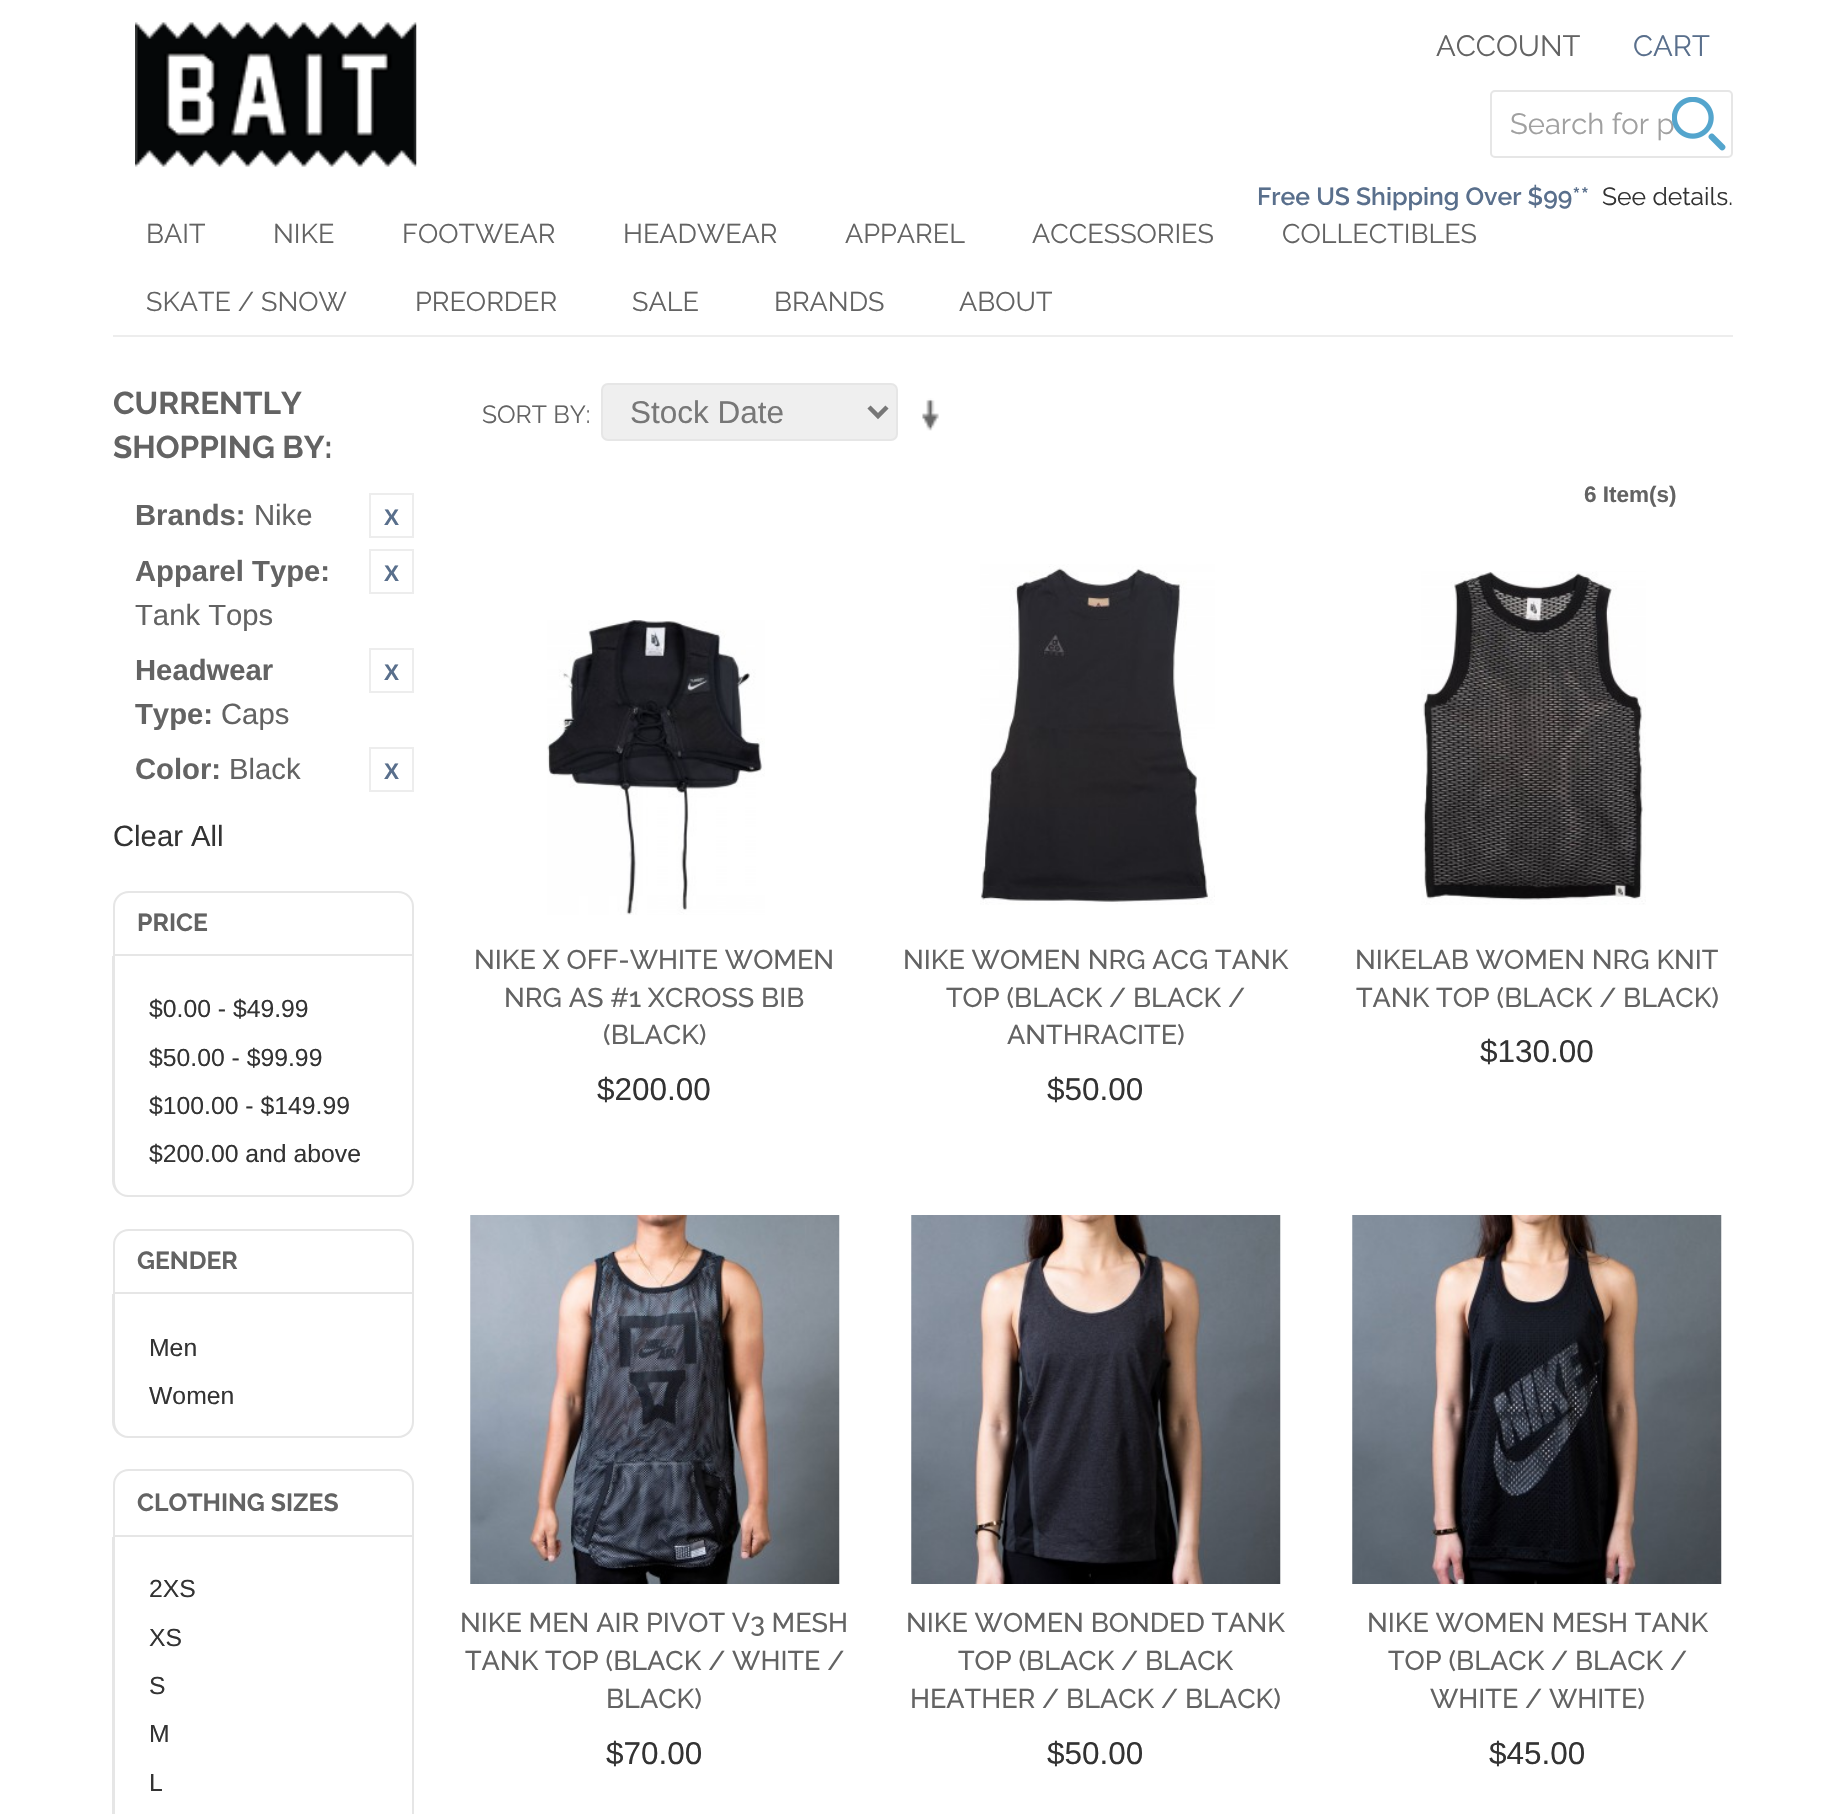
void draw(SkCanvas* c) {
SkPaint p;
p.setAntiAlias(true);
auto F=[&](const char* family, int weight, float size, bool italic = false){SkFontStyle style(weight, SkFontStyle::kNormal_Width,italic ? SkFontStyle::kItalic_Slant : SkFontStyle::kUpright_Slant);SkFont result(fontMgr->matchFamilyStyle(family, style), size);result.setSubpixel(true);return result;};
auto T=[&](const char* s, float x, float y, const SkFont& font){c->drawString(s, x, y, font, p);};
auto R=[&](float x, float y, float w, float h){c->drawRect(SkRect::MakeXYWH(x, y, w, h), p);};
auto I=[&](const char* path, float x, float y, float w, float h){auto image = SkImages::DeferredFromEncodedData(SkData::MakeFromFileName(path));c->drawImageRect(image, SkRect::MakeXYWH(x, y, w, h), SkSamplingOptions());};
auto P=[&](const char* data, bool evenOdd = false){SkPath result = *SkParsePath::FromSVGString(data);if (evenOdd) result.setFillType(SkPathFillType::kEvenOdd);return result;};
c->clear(0xffffffff);
I("1.png",135,22,282,145);
auto f1 = F("Raleway",400,29.25);
p.setColor(0xff636363);
T("ACCOUNT",1436,56,f1);
p.setColor(0xff596f8c);
T("CART",1633,56,f1);
auto f2 = F("Raleway",600,24.75);
T("Free US Shipping Over $99**",1257,205,f2);
auto f3 = F("Raleway",400,24.75);
p.setColor(0xff333333);
T("See details.",1602,205,f3);
p.setStroke(true);
p.setStrokeWidth(2);
p.setColor(0xffe6e6e6);
c->drawRoundRect(SkRect::MakeXYWH(1491,91,241,66),4,4,p);
p.setStroke(false);
p.setColor(0xffa0a0a0);
T("Search for p",1510,134,f1);
I("2.png",1672,97,54,54);
p.setColor(0xffededed);
R(113,335,1620,2);
auto f4 = F("Raleway",400,27);
p.setColor(0xff636363);
T("BAIT",146,243,f4);
T("NIKE",273,243,f4);
T("FOOTWEAR",402,243,f4);
T("HEADWEAR",623,243,f4);
T("APPAREL",845,243,f4);
T("ACCESSORIES",1032,243,f4);
T("COLLECTIBLES",1282,243,f4);
T("SKATE / SNOW",146,311,f4);
T("PREORDER",415,311,f4);
T("SALE",632,311,f4);
T("BRANDS",774,311,f4);
T("ABOUT",959,311,f4);
auto f5 = F("Raleway",700,31.5);
T("CURRENTLY",113,414,f5);
T("SHOPPING BY:",113,458,f5);
auto f6 = F("Liberation Sans",700,29.25);
T("Brands:",135,525,f6);
auto f7 = F("Liberation Sans",400,29.25);
T("Nike",254,525,f7);
p.setStroke(true);
p.setColor(0xffededed);
c->drawRect(SkRect::MakeXYWH(370,494,43,43),p);
auto f8 = F("Liberation Sans",700,22.5);
p.setStroke(false);
p.setColor(0xff596f8c);
T("X",384,525,f8);
p.setColor(0xff636363);
T("Apparel Type:",135,581,f6);
p.setStroke(true);
p.setColor(0xffededed);
c->drawRect(SkRect::MakeXYWH(370,550,43,43),p);
p.setStroke(false);
p.setColor(0xff596f8c);
T("X",384,581,f8);
p.setColor(0xff636363);
T("Tank Tops",135,625,f7);
T("Headwear",135,680,f6);
p.setStroke(true);
p.setColor(0xffededed);
c->drawRect(SkRect::MakeXYWH(370,649,43,43),p);
p.setStroke(false);
p.setColor(0xff596f8c);
T("X",384,680,f8);
p.setColor(0xff636363);
T("Type:",135,724,f6);
T("Caps",221,724,f7);
T("Color:",135,779,f6);
T("Black",229,779,f7);
p.setStroke(true);
p.setColor(0xffededed);
c->drawRect(SkRect::MakeXYWH(370,748,43,43),p);
p.setStroke(false);
p.setColor(0xff596f8c);
T("X",384,779,f8);
p.setColor(0xff333333);
T("Clear All",113,846,f7);
p.setStroke(true);
p.setColor(0xffe6e6e6);
c->drawPath(P("M129 892h269c8.5 0 15 6.5 15 15v48h-299v-48c0-8.5 6.5-15 15-15z"),p);
auto f9 = F("Raleway",700,24.75);
p.setStroke(false);
p.setColor(0xff636363);
T("PRICE",137,931,f9);
p.setColor(0xffe6e6e6);
c->drawPath(P("M112 956h302v225c0 9-7 16-16 16h-270c-8 0-16-7-16-16zm3 0h297v225c0 8-6 14-14 14h-270c-7 0-13-6-13-14z",true),p);
auto f10 = F("Liberation Sans",400,24.75);
p.setColor(0xff333333);
T("$0.00 - $49.99",149,1017,f10);
T("$50.00 - $99.99",149,1066,f10);
T("$100.00 - $149.99",149,1114,f10);
T("$200.00 and above",149,1162,f10);
p.setStroke(true);
p.setColor(0xffe6e6e6);
c->drawPath(P("M129 1230h269c8.5 0 15 6.5 15 15v48h-299v-48c0-8.5 6.5-15 15-15z"),p);
p.setStroke(false);
p.setColor(0xff636363);
T("GENDER",137,1269,f9);
p.setColor(0xffe6e6e6);
c->drawPath(P("M112 1294h302v128c0 9-7 16-16 16h-270c-8 0-16-7-16-16zm3 0h297v128c0 7-6 14-14 14h-270c-7 0-13-7-13-14z",true),p);
p.setColor(0xff333333);
T("Men",149,1356,f10);
T("Women",149,1404,f10);
p.setStroke(true);
p.setColor(0xffe6e6e6);
c->drawPath(P("M129 1470h269c8.5 0 15 6.5 15 15v51h-299v-51c0-8.5 6.5-15 15-15z"),p);
p.setStroke(false);
p.setColor(0xff636363);
T("CLOTHING SIZES",137,1511,f9);
p.setColor(0xffe6e6e6);
c->drawPath(P("M112 1537h302v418c0 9-7 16-16 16h-270c-8 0-16-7-16-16zm3 0h297v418c0 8-6 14-14 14h-270c-7 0-13-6-13-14z",true),p);
p.setColor(0xff333333);
T("2XS",149,1597,f10);
T("XS",149,1646,f10);
T("S",149,1694,f10);
T("M",149,1742,f10);
T("L",149,1791,f10);
p.setColor(0xff636363);
T("SORT BY:",482,423,f3);
p.setColor(0xffefefef);
c->drawRoundRect(SkRect::MakeXYWH(602,384,295,56),6,6,p);
p.setStroke(true);
p.setColor(0xffe6e6e6);
c->drawRoundRect(SkRect::MakeXYWH(602,384,295,56),6,6,p);
p.setStrokeWidth(4.5);
p.setColor(0xff777777);
c->drawPath(P("M869 407l9 9l9-9"),p);
auto f11 = F("Liberation Sans",400,31.5);
p.setStroke(false);
T("Stock Date",630,423,f11);
I("3.png",922,398,17,33);
p.setColor(0xff636363);
T("6 Item(s)",1584,502,f8);
I("4.png",547,620,218,295);
auto f12 = F("Raleway",500,27);
T("NIKE X OFF-WHITE WOMEN",474,969,f12);
T("NRG AS #1 XCROSS BIB",504,1007,f12);
T("(BLACK)",603,1044,f12);
p.setColor(0xff333333);
T("$200.00",597,1100,f11);
I("5.png",980,564,235,341);
p.setColor(0xff636363);
T("NIKE WOMEN NRG ACG TANK",903,969,f12);
T("TOP (BLACK / BLACK /",946,1007,f12);
T("ANTHRACITE)",1007,1044,f12);
p.setColor(0xff333333);
T("$50.00",1047,1100,f11);
I("6.png",1421,571,225,334);
p.setColor(0xff636363);
T("NIKELAB WOMEN NRG KNIT",1355,969,f12);
T("TANK TOP (BLACK / BLACK)",1356,1007,f12);
p.setColor(0xff333333);
T("$130.00",1480,1062,f11);
I("7.png",470,1215,370,369);
p.setColor(0xff636363);
T("NIKE MEN AIR PIVOT V3 MESH",460,1632,f12);
T("TANK TOP (BLACK / WHITE /",465,1670,f12);
T("BLACK)",606,1708,f12);
p.setColor(0xff333333);
T("$70.00",606,1764,f11);
I("8.png",911,1215,370,369);
p.setColor(0xff636363);
T("NIKE WOMEN BONDED TANK",906,1632,f12);
T("TOP (BLACK / BLACK",958,1670,f12);
T("HEATHER / BLACK / BLACK)",910,1708,f12);
p.setColor(0xff333333);
T("$50.00",1047,1764,f11);
I("9.png",1352,1215,370,369);
p.setColor(0xff636363);
T("NIKE WOMEN MESH TANK",1367,1632,f12);
T("TOP (BLACK / BLACK /",1388,1670,f12);
T("WHITE / WHITE)",1430,1708,f12);
p.setColor(0xff333333);
T("$45.00",1489,1764,f11);
}
